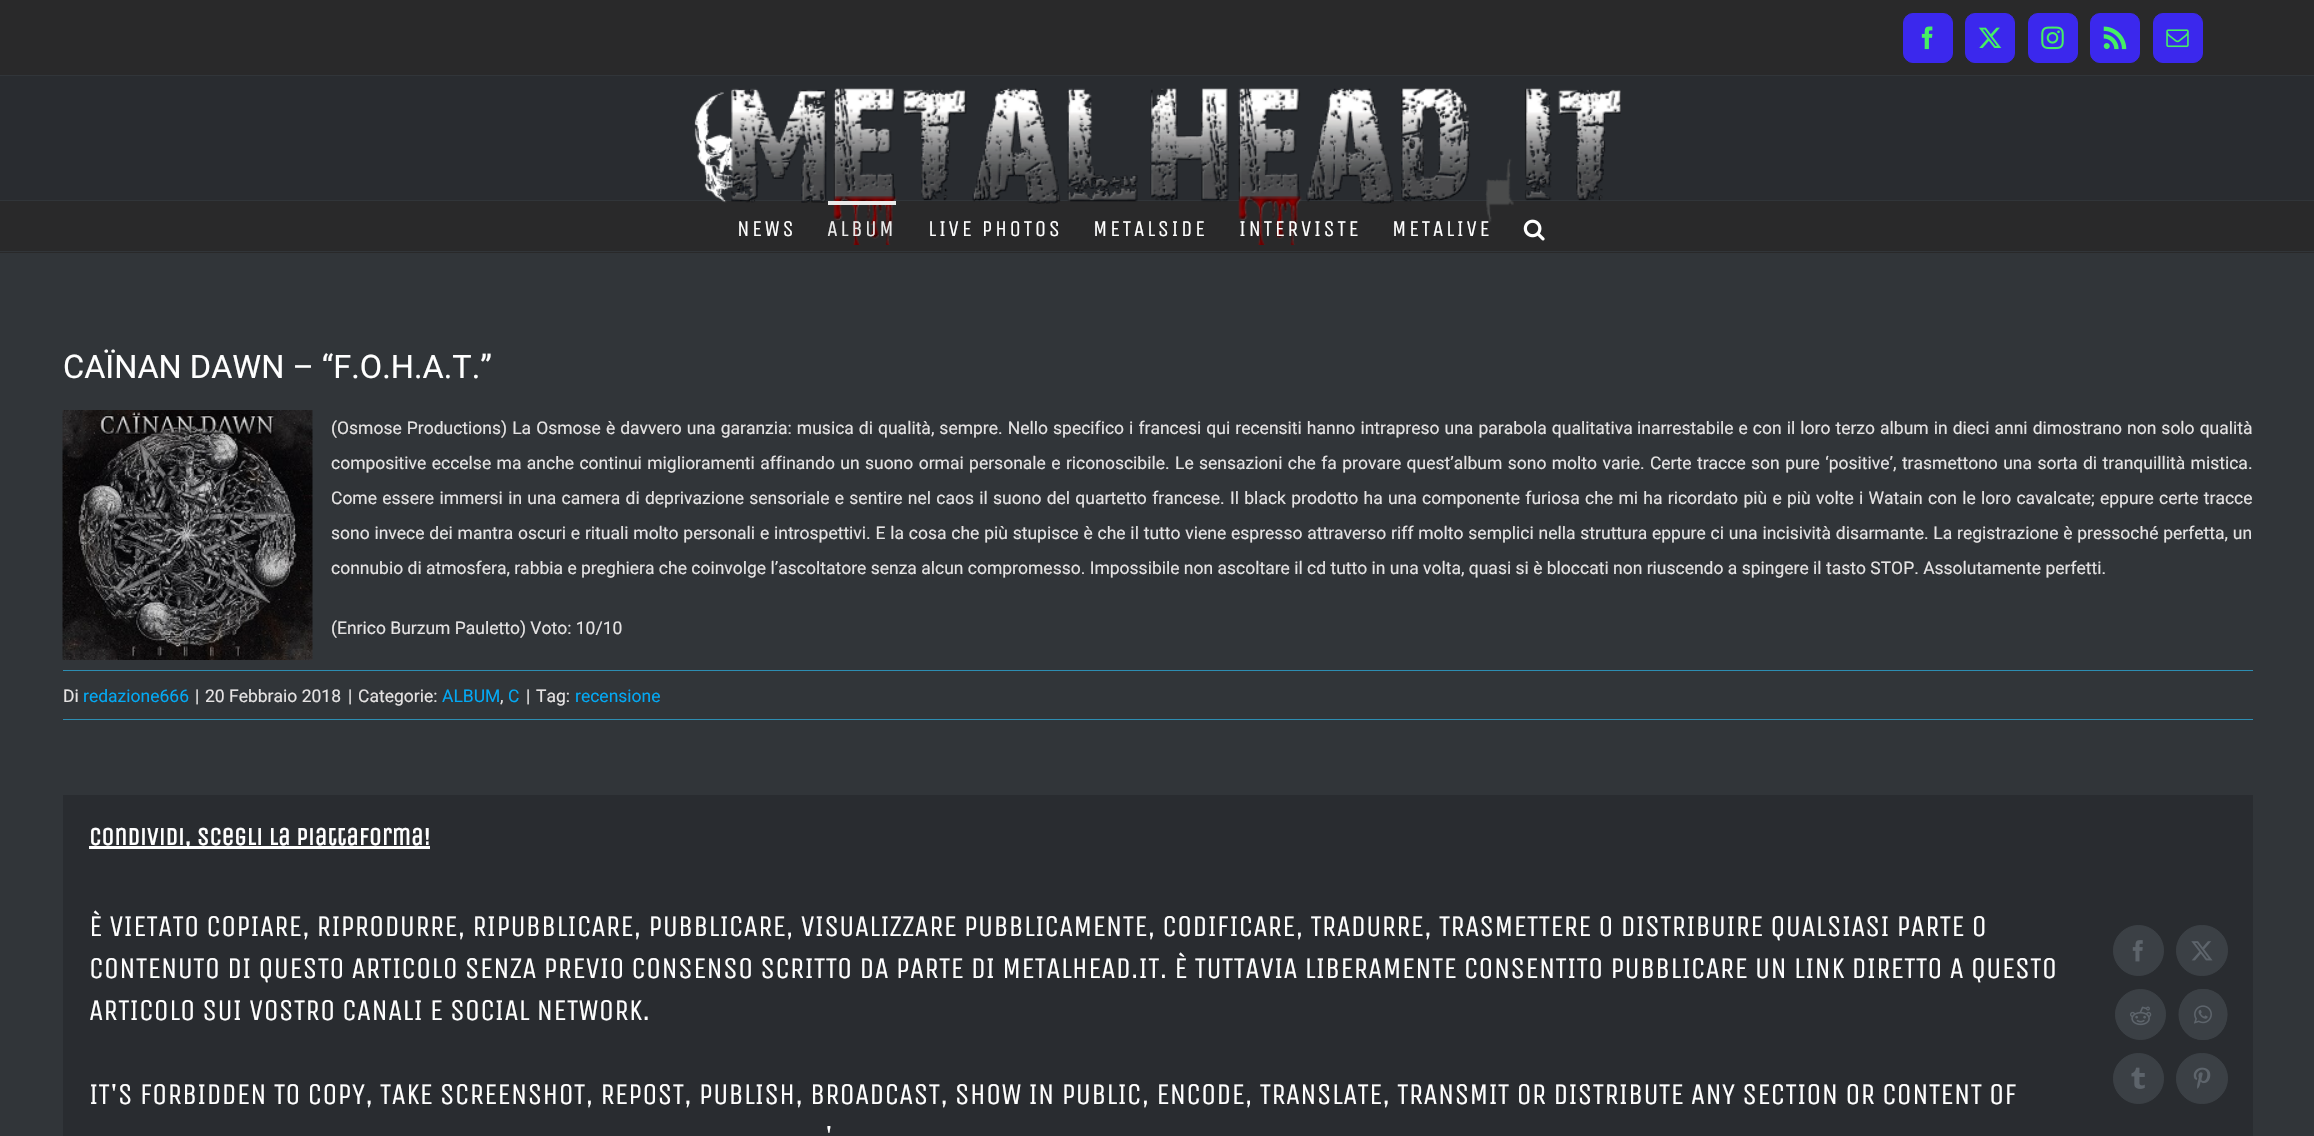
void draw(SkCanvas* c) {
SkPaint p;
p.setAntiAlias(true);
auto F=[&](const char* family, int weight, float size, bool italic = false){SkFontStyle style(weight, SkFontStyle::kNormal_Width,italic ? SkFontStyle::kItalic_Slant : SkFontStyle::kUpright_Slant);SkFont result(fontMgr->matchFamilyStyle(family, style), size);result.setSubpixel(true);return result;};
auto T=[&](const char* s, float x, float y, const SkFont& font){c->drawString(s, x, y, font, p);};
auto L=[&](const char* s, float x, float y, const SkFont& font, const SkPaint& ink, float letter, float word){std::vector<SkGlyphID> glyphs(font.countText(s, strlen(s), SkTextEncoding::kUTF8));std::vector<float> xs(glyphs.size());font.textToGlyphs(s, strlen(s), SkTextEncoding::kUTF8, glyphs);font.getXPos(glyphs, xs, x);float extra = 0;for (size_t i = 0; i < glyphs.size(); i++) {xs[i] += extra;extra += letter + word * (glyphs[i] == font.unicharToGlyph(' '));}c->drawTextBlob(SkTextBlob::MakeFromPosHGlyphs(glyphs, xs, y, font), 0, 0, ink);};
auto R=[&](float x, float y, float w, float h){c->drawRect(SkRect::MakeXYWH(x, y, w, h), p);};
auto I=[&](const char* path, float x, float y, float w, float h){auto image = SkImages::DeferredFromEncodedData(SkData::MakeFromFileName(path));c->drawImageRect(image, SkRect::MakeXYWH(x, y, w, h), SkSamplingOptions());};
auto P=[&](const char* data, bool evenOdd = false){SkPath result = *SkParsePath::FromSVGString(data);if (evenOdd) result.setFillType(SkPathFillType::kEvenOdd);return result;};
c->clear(0xff313539);
p.setColor(0xff29292a);
R(0,0,2314,75);
p.setColor(0xff3b28ed);
c->drawRoundRect(SkRect::MakeXYWH(1903.5,13.5,49,49),9.5,9.5,p);
p.setStroke(true);
p.setStrokeWidth(1);
c->drawRoundRect(SkRect::MakeXYWH(1903.5,13.5,49,49),9.5,9.5,p);
I("1.png",1921,26,12,24);
p.setStroke(false);
c->drawRoundRect(SkRect::MakeXYWH(1965.5,13.5,49,49),9.5,9.5,p);
p.setStroke(true);
c->drawRoundRect(SkRect::MakeXYWH(1965.5,13.5,49,49),9.5,9.5,p);
I("2.png",1978,27,24,21);
p.setStroke(false);
c->drawRoundRect(SkRect::MakeXYWH(2028.5,13.5,49,49),9.5,9.5,p);
p.setStroke(true);
c->drawRoundRect(SkRect::MakeXYWH(2028.5,13.5,49,49),9.5,9.5,p);
I("3.png",2041,26,23,24);
p.setStroke(false);
c->drawRoundRect(SkRect::MakeXYWH(2090.5,13.5,49,49),9.5,9.5,p);
p.setStroke(true);
c->drawRoundRect(SkRect::MakeXYWH(2090.5,13.5,49,49),9.5,9.5,p);
I("4.png",2103,26,24,24);
p.setStroke(false);
c->drawRoundRect(SkRect::MakeXYWH(2153.5,13.5,49,49),9.5,9.5,p);
p.setStroke(true);
c->drawRoundRect(SkRect::MakeXYWH(2153.5,13.5,49,49),9.5,9.5,p);
I("5.png",2166,29,23,19);
p.setStroke(false);
p.setColor(0xff292c30);
R(0,76,2314,124);
p.setColor(0xff29292a);
R(0,201,2314,52);
I("6.png",694,88,927,157);
p.setColor(0xff313539);
R(0,251,2314,1);
auto f1 = F("Unica One",400,22.5);
p.setColor(0xffffffff);
L("NEWS",737,236,f1,p,2.5,0);
p.setColor(0xffeaeaea);
R(828,201,68,4);
L("ALBUM",827,236,f1,p,2.5,0);
p.setColor(0xffffffff);
L("LIVE PHOTOS",928,236,f1,p,2.5,0);
L("METALSIDE",1093,236,f1,p,2.5,0);
L("INTERVISTE",1239,236,f1,p,2.5,0);
L("METALIVE",1392,236,f1,p,2.5,0);
I("7.png",1523,219,22,22);
auto f2 = F("Roboto",400,32.5);
T("CAÏNAN DAWN – “F.O.H.A.T.”",63,378,f2);
I("8.png",62,410,251,250);
auto f3 = F("Roboto",400,17.5);
p.setColor(0xffe5e3e3);
L("(Osmose Productions) La Osmose è davvero una garanzia: musica di qualità, sempre. Nello specifico i francesi qui recensiti hanno intrapreso una parabola qualitativa",331,434,f3,p,0,.7);
L("inarrestabile e con il loro terzo album in dieci anni dimostrano non solo qualità",1637,434,f3,p,0,.7);
L("compositive eccelse ma anche continui miglioramenti affinando un suono ormai personale e riconoscibile. Le sensazioni che fa provare quest’album sono molto varie. Certe tracce son pure ‘positive’, trasmettono una sorta di tranquillità mistica.",331,469,f3,p,0,1.05);
L("Come essere immersi in una camera di deprivazione sensoriale e sentire nel caos il suono del quartetto francese. Il black prodotto ha una componente furiosa che mi ha ricordato più e più volte i Watain con le loro cavalcate; eppure certe tracce",331,504,f3,p,0,.95);
L("sono invece dei mantra oscuri e rituali molto personali e introspettivi. E la cosa che più stupisce è che il tutto viene espresso attraverso riff molto semplici nella struttura eppure ci una incisività disarmante. La registrazione è pressoché perfetta, un",331,539,f3,p,0,.45);
T("connubio di atmosfera, rabbia e preghiera che coinvolge l’ascoltatore senza alcun compromesso. Impossibile non ascoltare il cd tutto in una volta, quasi si è bloccati non riuscendo a spingere il tasto STOP. Assolutamente perfetti.",331,574,f3);
T("(Enrico Burzum Pauletto) Voto: 10/10",331,634,f3);
p.setColor(0xff2d8db2);
R(63,670,2190,1);
R(63,719,2190,1);
p.setColor(0xffe5e3e3);
T("Di",63,702,f3);
p.setColor(0xff03a9f4);
T("redazione666",83,702,f3);
p.setColor(0xffe5e3e3);
T("|",195,702,f3);
T("20 Febbraio 2018",205,702,f3);
T("|",348,702,f3);
T("Categorie:",358,702,f3);
p.setColor(0xff03a9f4);
T("ALBUM",442,702,f3);
p.setColor(0xffe5e3e3);
T(",",500,702,f3);
p.setColor(0xff03a9f4);
T("C",508,702,f3);
p.setColor(0xffe5e3e3);
T("|",526,702,f3);
T("Tag:",536,702,f3);
p.setColor(0xff03a9f4);
T("recensione",575,702,f3);
p.setColor(0xff292c30);
R(63,795,2190,341);
p.setColor(0xffffffff);
R(89,846,341,3);
auto f4 = F("Unica One",700,25);
T("Condividi, Scegli la piattaforma!",89,845,f4);
auto f5 = F("Unica One",400,30);
T("È VIETATO COPIARE, RIPRODURRE, RIPUBBLICARE, PUBBLICARE, VISUALIZZARE PUBBLICAMENTE, CODIFICARE, TRADURRE, TRASMETTERE O DISTRIBUIRE QUALSIASI PARTE O",89,936,f5);
T("CONTENUTO DI QUESTO ARTICOLO SENZA PREVIO CONSENSO SCRITTO DA PARTE DI METALHEAD.IT. È TUTTAVIA LIBERAMENTE CONSENTITO PUBBLICARE UN LINK DIRETTO A QUESTO",89,978,f5);
T("ARTICOLO SUI VOSTRO CANALI E SOCIAL NETWORK.",89,1020,f5);
T("IT'S FORBIDDEN TO COPY, TAKE SCREENSHOT, REPOST, PUBLISH, BROADCAST, SHOW IN PUBLIC, ENCODE, TRANSLATE, TRANSMIT OR DISTRIBUTE ANY SECTION OR CONTENT OF",89,1104,f5);
T("'",825,1146,f5);
p.setColor(0xff3b4045);
c->drawCircle(2138.5,950.5,25,p);
p.setStroke(true);
c->drawCircle(2138.5,950.5,25,p);
I("9.png",2132,940,11,22);
p.setStroke(false);
c->drawRoundRect(SkRect::MakeXYWH(2176.5,925.5,51,50),25,25,p);
p.setStroke(true);
c->drawRoundRect(SkRect::MakeXYWH(2176.5,925.5,51,50),25,25,p);
I("10.png",2191,941,22,20);
p.setStroke(false);
c->drawCircle(2140.5,1014.5,25,p);
p.setStroke(true);
c->drawCircle(2140.5,1014.5,25,p);
I("11.png",2130,1006,22,20);
p.setStroke(false);
c->drawOval(SkRect::MakeXYWH(2178.5,989,49,51),p);
p.setStroke(true);
p.setStrokeWidth(1.2);
c->drawPath(P("M2203 989.5c31.5 0 31.5 50 0 50c-31 0-31-50 0-50z"),p);
I("12.png",2194,1005,18,19);
p.setStroke(false);
c->drawCircle(2138.5,1078.5,25,p);
p.setStroke(true);
p.setStrokeWidth(1);
c->drawCircle(2138.5,1078.5,25,p);
I("13.png",2131,1067,14,22);
p.setStroke(false);
c->drawRoundRect(SkRect::MakeXYWH(2176.5,1053.5,51,50),25,25,p);
p.setStroke(true);
c->drawRoundRect(SkRect::MakeXYWH(2176.5,1053.5,51,50),25,25,p);
I("14.png",2193,1067,18,22);
}
